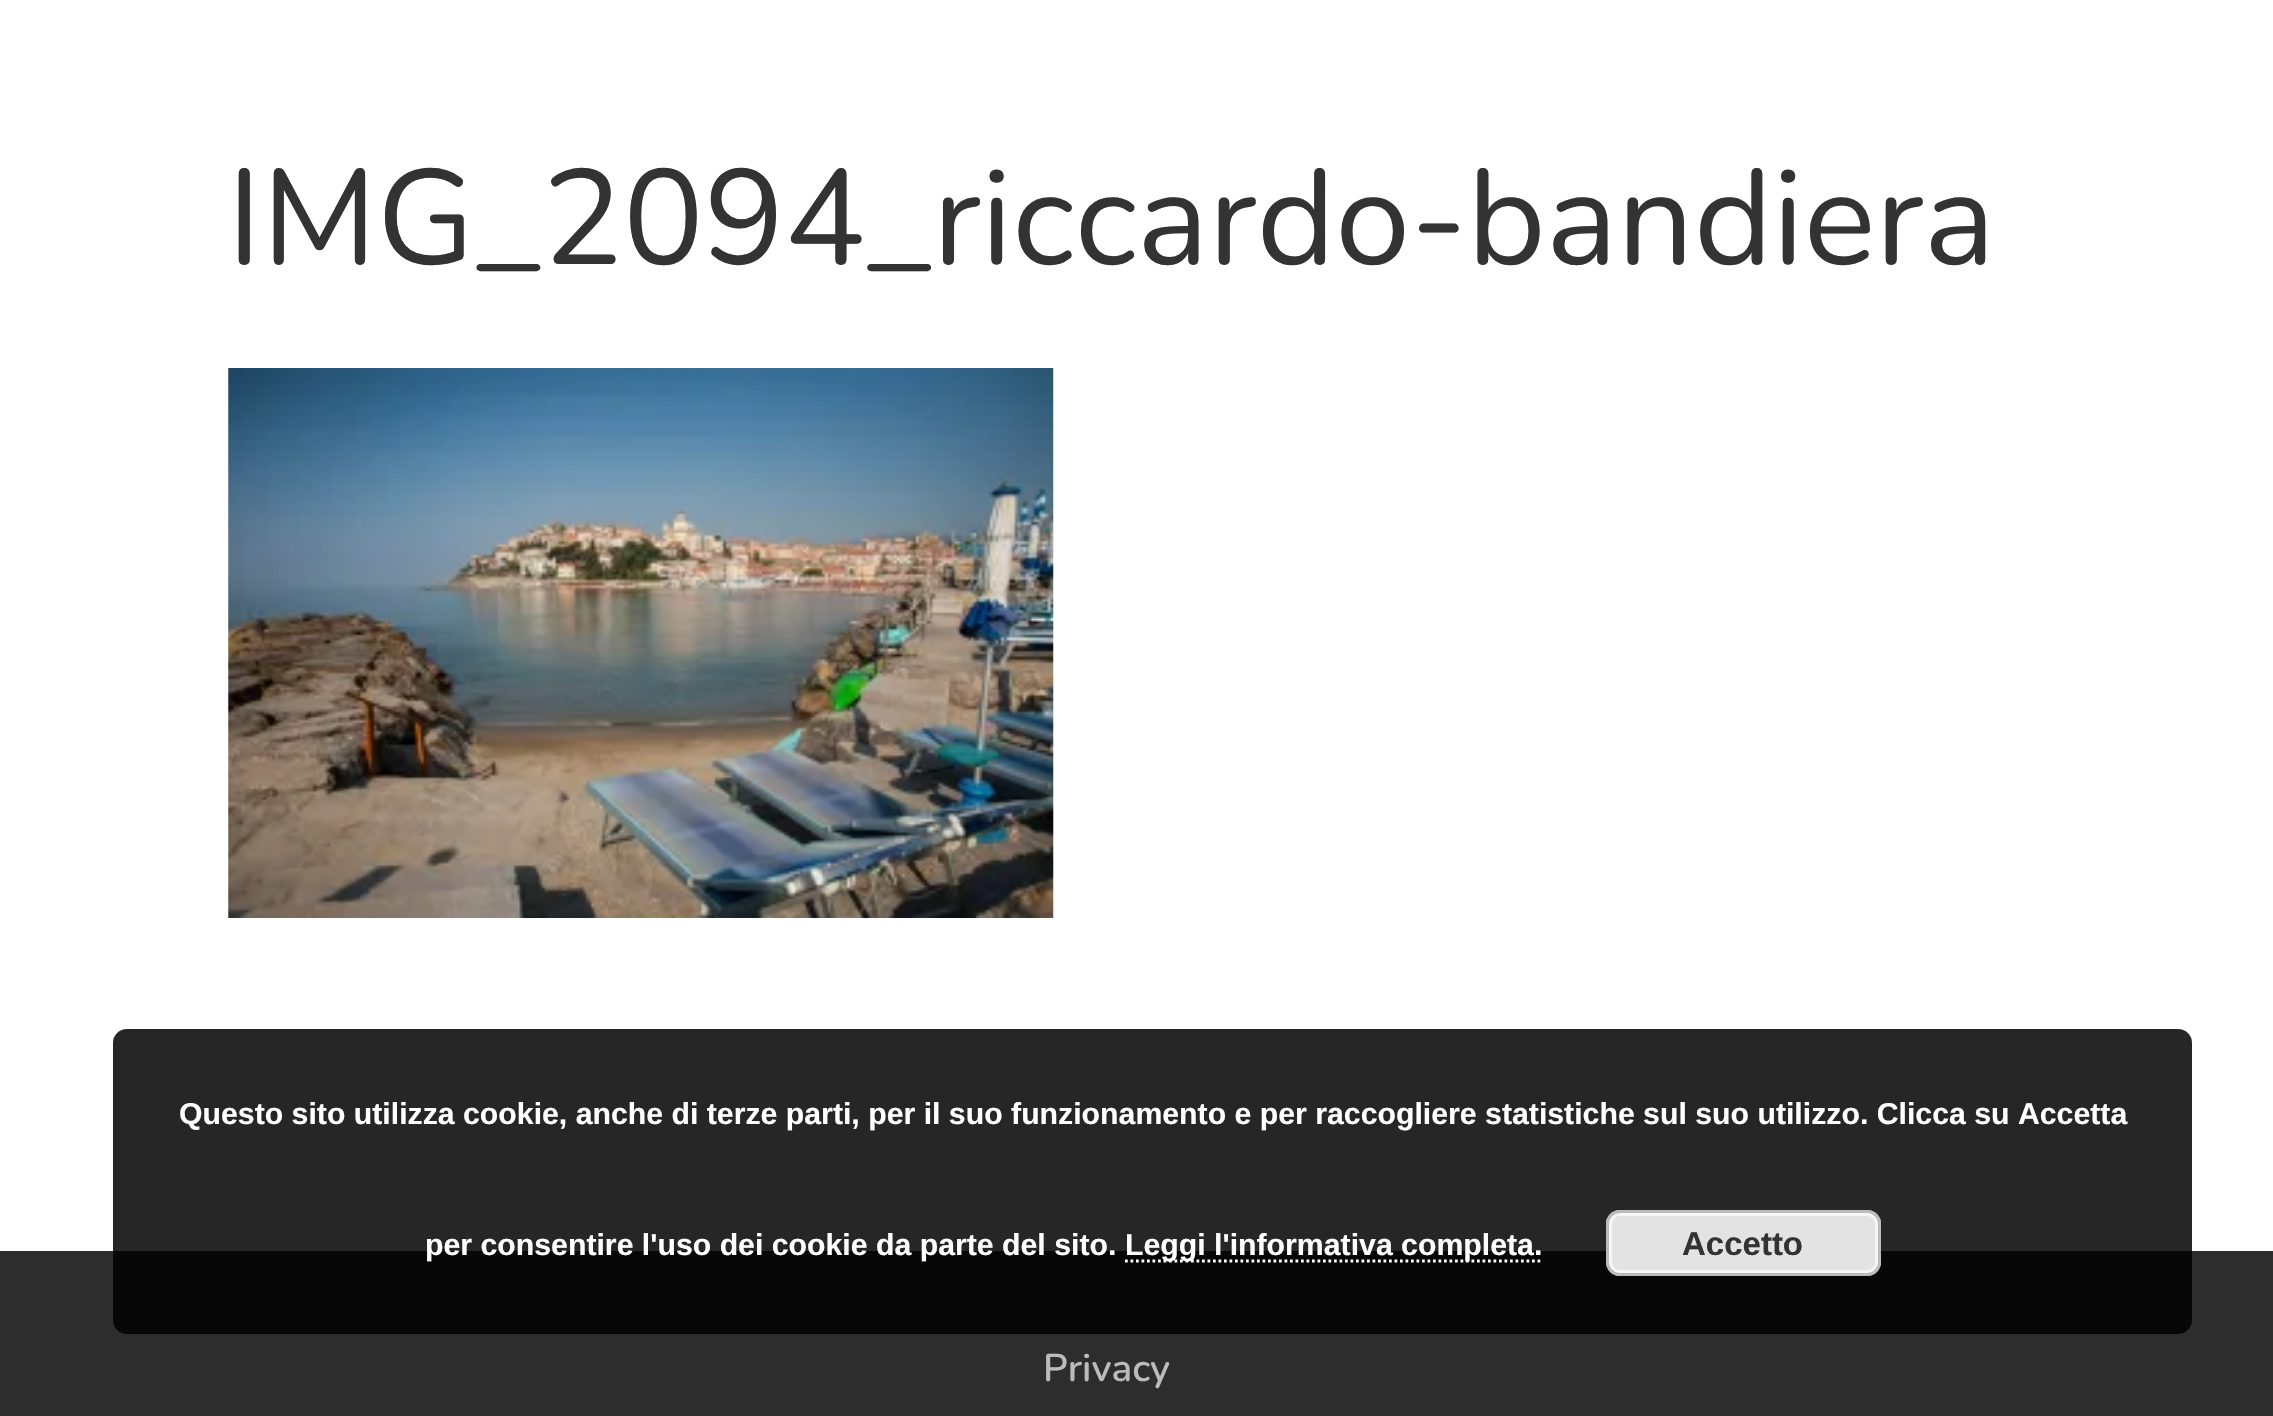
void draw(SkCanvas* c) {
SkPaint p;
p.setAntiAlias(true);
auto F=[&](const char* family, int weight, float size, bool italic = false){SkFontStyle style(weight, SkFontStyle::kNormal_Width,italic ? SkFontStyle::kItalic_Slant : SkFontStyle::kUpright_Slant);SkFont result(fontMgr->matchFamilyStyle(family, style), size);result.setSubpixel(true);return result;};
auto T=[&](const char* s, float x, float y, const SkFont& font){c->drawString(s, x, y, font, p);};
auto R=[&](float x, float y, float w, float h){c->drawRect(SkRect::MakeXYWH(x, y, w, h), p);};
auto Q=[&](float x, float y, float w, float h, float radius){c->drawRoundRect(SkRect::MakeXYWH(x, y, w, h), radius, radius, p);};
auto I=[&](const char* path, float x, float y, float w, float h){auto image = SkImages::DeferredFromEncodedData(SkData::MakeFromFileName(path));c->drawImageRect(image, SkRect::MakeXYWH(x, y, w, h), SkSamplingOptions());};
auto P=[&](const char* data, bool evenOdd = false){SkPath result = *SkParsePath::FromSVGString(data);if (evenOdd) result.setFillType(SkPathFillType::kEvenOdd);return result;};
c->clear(0xffffffff);
auto f1 = F("Nunito",400,134.75);
p.setColor(0xff333333);
T("IMG_2094_riccardo-bandiera",227,264,f1);
I("1.png",228,368,826,550);
p.setColor(0xff2d2d2d);
R(0,1251,2273,165);
auto f2 = F("Nunito",600,38.5);
p.setColor(0xffbbbbbb);
T("Privacy",1043,1381,f2);
p.setColor(0xd9000000);
Q(113,1029,2079,305,14);
auto f3 = F("Liberation Sans",700,30.25);
p.setColor(0xffffffff);
T("Questo sito utilizza cookie, anche di terze parti, per il suo funzionamento e per raccogliere statistiche sul suo utilizzo. Clicca su Accetta",179,1124,f3);
T("per consentire l'uso dei cookie da parte del sito.",425,1255,f3);
p.setStroke(true);
p.setStrokeWidth(2.8);
p.setPathEffect(SkDashPathEffect::Make({{2.75f,2.75f}}, 0));
c->drawPath(P("M1125 1261h418"),p);
p.setPathEffect(nullptr);
p.setStroke(false);
T("Leggi l'informativa completa.",1125,1255,f3);
p.setColor(0xffe3e3e3);
Q(1606,1210,275,66,14);
p.setStroke(true);
p.setStrokeWidth(3);
p.setColor(0xfff6f6f6);
c->drawRoundRect(SkRect::MakeXYWH(1610.5,1214.5,266,57),9.5,9.5,p);
p.setColor(0xffbbbbbb);
c->drawRoundRect(SkRect::MakeXYWH(1607.5,1211.5,272,63),12.5,12.5,p);
auto f4 = F("Liberation Sans",700,33);
p.setStroke(false);
p.setColor(0xff333333);
T("Accetto",1682,1255,f4);
}
